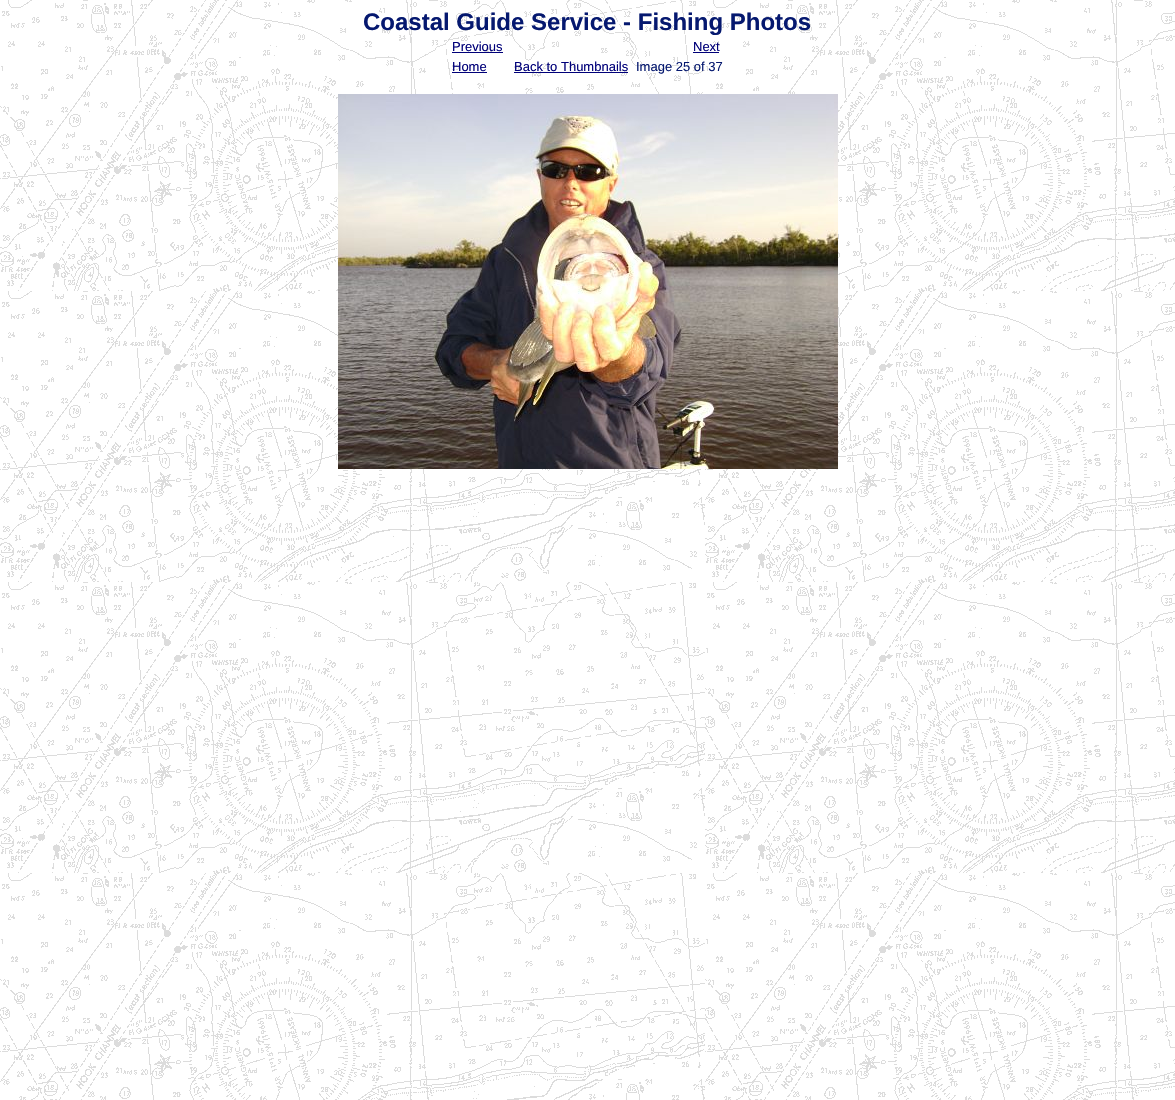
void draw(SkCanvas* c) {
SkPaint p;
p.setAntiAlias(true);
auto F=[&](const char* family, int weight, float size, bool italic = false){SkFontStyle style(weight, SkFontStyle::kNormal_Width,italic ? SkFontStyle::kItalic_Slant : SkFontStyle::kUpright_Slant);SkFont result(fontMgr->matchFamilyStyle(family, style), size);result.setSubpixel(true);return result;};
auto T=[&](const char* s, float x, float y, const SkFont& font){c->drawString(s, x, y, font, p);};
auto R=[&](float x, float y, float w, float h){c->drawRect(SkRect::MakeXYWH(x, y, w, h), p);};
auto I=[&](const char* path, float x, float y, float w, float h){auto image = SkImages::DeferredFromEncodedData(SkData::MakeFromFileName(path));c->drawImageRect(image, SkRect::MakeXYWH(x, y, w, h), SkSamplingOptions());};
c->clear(0xffffffff);
I("1.png",0,0,1175,1100);
auto f1 = F("Liberation Sans",700,24);
p.setColor(0xff05186f);
T("Coastal Guide Service - Fishing Photos",363,30,f1);
auto f2 = F("Liberation Sans",400,13);
p.setColor(0xff000079);
T("Previous",452,51,f2);
R(452,52,51,1);
T("Next",693,51,f2);
R(693,52,26,1);
T("Home",452,71,f2);
R(452,72,35,1);
T("Back to Thumbnails",514,71,f2);
R(514,72,114,1);
p.setColor(0xff05186f);
T("Image 25 of 37",636,71,f2);
I("2.png",338,94,500,375);
}
